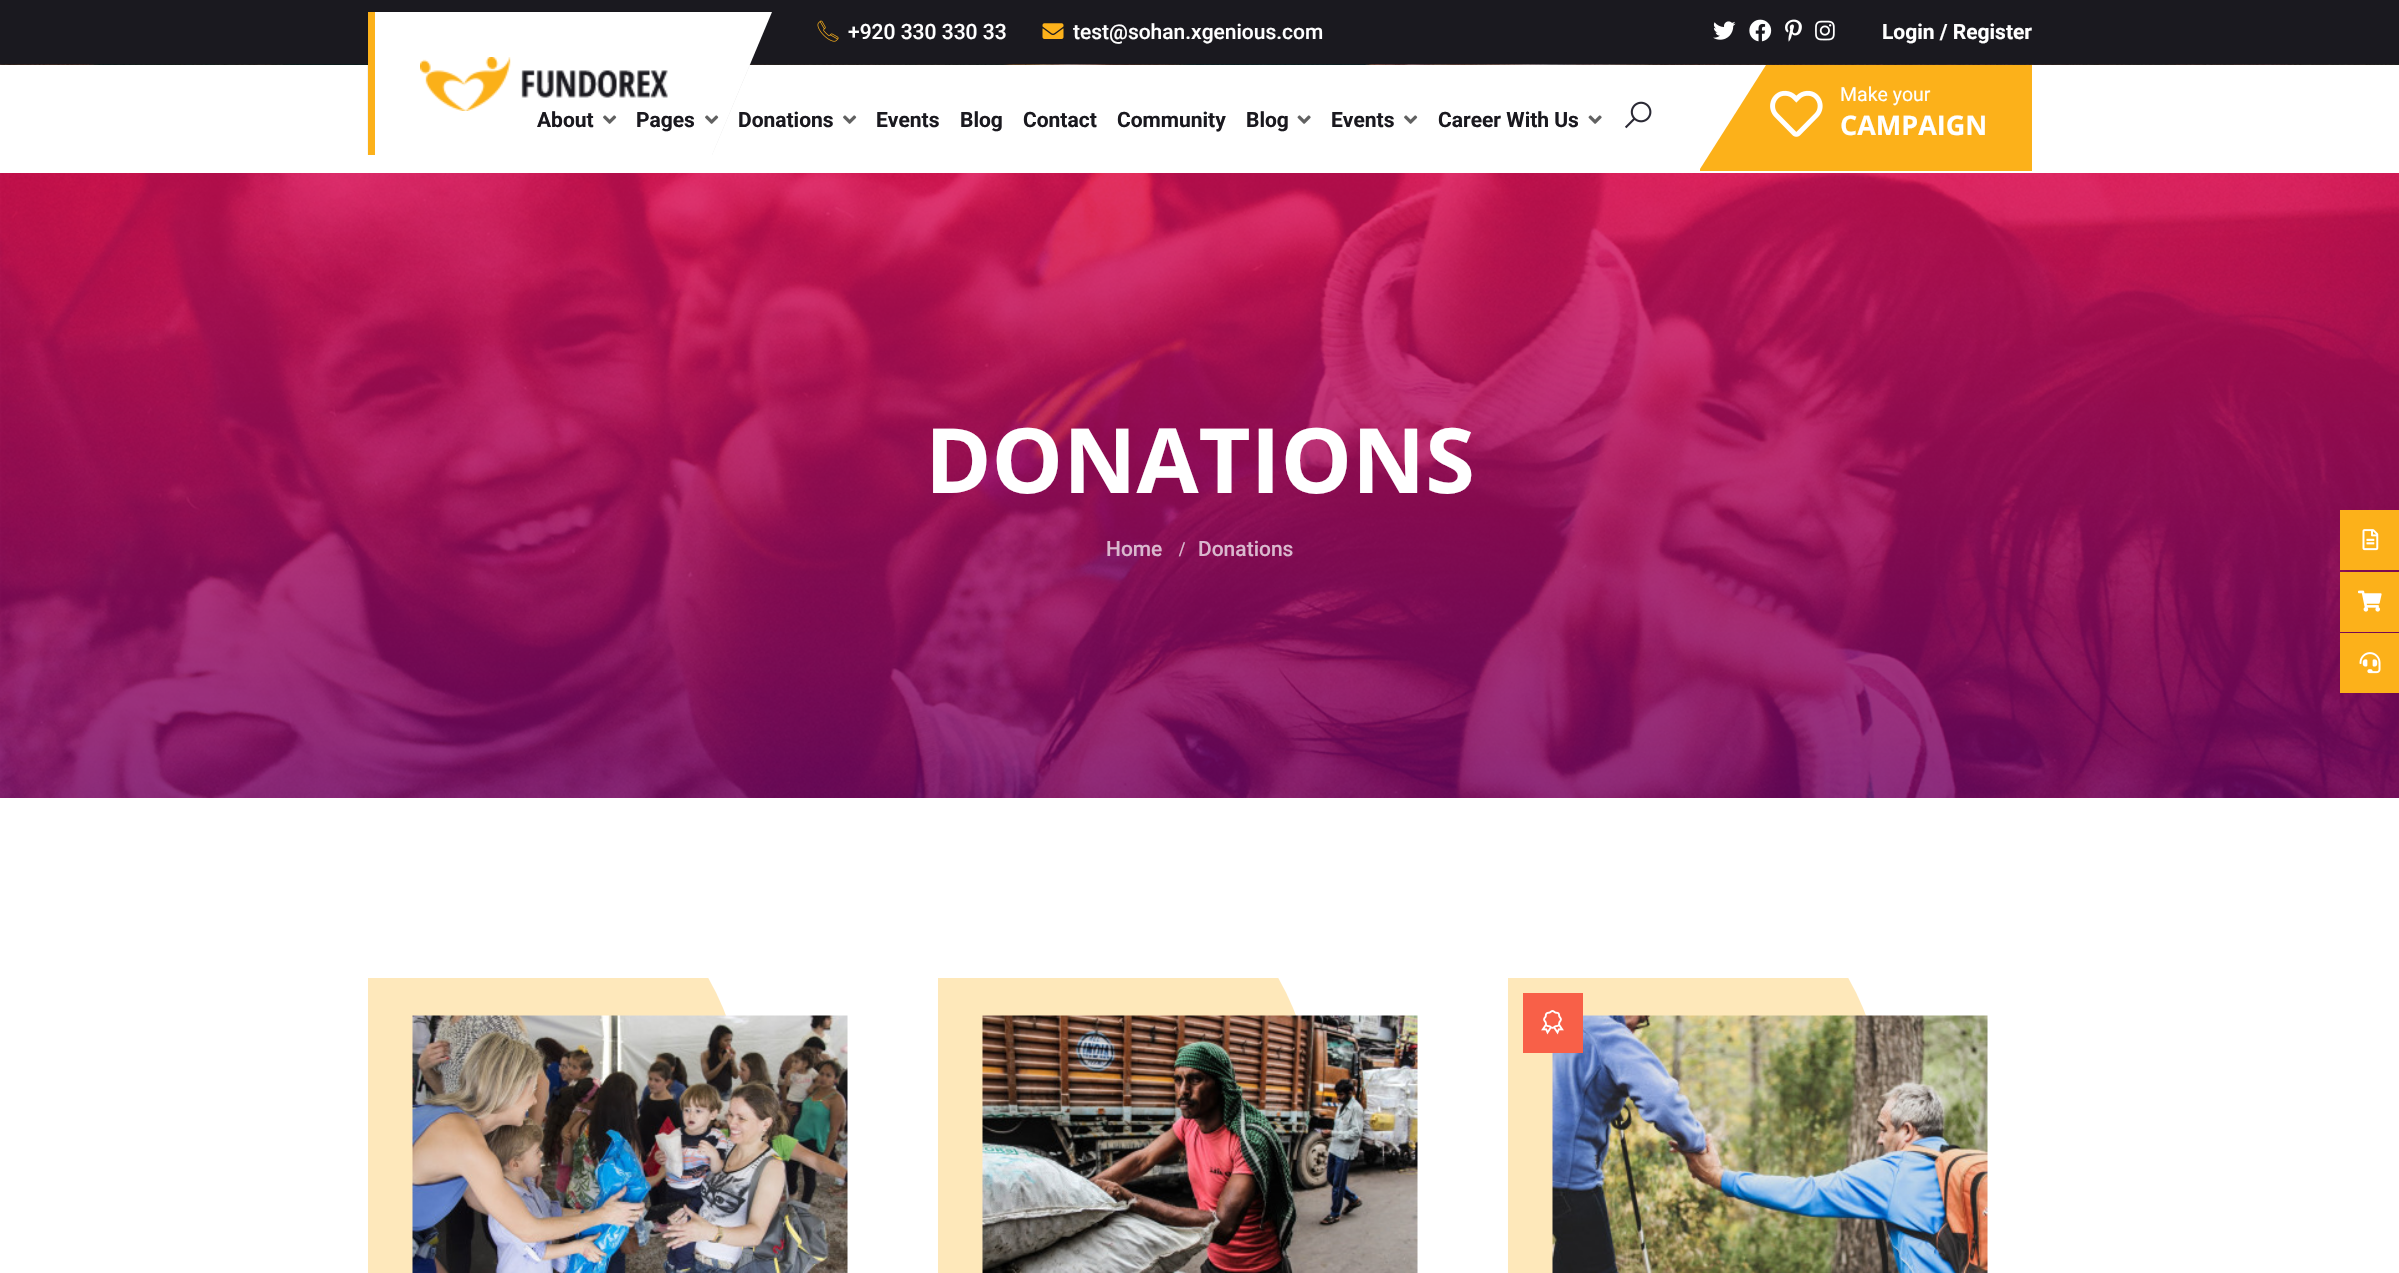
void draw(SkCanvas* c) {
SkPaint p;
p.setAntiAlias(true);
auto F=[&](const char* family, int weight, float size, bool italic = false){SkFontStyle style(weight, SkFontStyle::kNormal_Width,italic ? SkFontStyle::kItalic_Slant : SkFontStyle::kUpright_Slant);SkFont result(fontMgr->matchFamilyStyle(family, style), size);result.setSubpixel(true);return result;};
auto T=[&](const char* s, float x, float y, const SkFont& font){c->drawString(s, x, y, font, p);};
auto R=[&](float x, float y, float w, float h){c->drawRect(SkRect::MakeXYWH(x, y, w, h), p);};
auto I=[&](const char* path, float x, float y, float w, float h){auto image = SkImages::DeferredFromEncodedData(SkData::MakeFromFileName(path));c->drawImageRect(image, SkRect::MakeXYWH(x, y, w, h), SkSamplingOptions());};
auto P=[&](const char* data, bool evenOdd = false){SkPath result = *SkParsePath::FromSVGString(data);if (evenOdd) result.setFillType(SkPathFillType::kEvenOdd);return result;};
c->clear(0xffffffff);
p.setColor(0xff1a191f);
R(0,0,2399,65);
I("1.png",817,20,22,22);
auto f1 = F("Roboto",500,21);
p.setColor(0xffffffff);
T("+920 330 330 33",848,39,f1);
I("2.png",1042,23,22,16);
T("test@sohan.xgenious.com",1073,39,f1);
I("3.png",1713,21,23,19);
I("4.png",1749,19,23,23);
I("5.png",1785,19,17,23);
I("6.png",1815,20,20,21);
auto f2 = F("Roboto",700,21);
T("Login / Register",1882,39,f2);
I("12.png",0,64,2399,734);
R(0,65,2399,108);
c->save();
c->clipPath(P("M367.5 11h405l-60.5 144h-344.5z"),true);
p.setColor(0x33000000);
p.setMaskFilter(SkMaskFilter::MakeBlur(kNormal_SkBlurStyle, 46.5));
c->drawRect(SkRect::MakeXYWH(368,12,405,144),p);
p.setMaskFilter(nullptr);
c->restore();
p.setColor(0xffffffff);
c->drawPath(P("M368 12h404l-60 143h-344z"),p);
p.setColor(0xfffcb11a);
R(368,12,7,143);
I("7.png",420,57,248,54);
c->drawPath(P("M1700 169l66-104h266v106h-332z"),p);
I("8.png",1770,90,53,47);
auto f3 = F("Roboto",400,19.5);
p.setColor(0xffffffff);
T("Make your",1840,101,f3);
auto f4 = F("Open Sans",700,27);
T("CAMPAIGN",1840,135,f4);
p.setColor(0xff1a191f);
T("About",537,127,f2);
I("9.png",603,115,14,9);
T("Pages",636,127,f2);
I("9.png",705,115,14,9);
T("Donations",738,127,f2);
I("9.png",843,115,14,9);
T("Events",876,127,f2);
T("Blog",960,127,f2);
T("Contact",1023,127,f2);
T("Community",1117,127,f2);
T("Blog",1246,127,f2);
I("10.png",1297,115,14,9);
T("Events",1331,127,f2);
I("9.png",1404,115,14,9);
T("Career With Us",1438,127,f2);
I("10.png",1588,115,14,9);
I("11.png",1625,101,27,28);
auto f5 = F("Open Sans",700,90);
p.setColor(0xffffffff);
T("DONATIONS",925,493,f5);
p.setColor(0xffdab8ce);
T("Home",1106,556,f1);
auto f6 = F("Liberation Serif",700,21);
T("/",1179,556,f6);
T("Donations",1198,556,f1);
p.setColor(0xfffcb11a);
R(2340,510,59,60);
I("13.png",2362,529,17,22);
R(2340,572,59,60);
I("14.png",2358,590,24,22);
R(2340,633,59,60);
I("15.png",2359,652,22,22);
c->save();
c->clipRect(SkRect::MakeXYWH(368,978,525,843));
p.setColor(0xfffee8bb);
c->drawCircle(480.5,1108.5,262.5,p);
c->restore();
I("16.png",412,1015,436,258);
c->save();
c->clipRect(SkRect::MakeXYWH(938,978,525,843));
p.setColor(0xfffee8ba);
c->drawCircle(1050.5,1108.5,262.5,p);
c->restore();
I("17.png",982,1015,436,258);
c->save();
c->clipRect(SkRect::MakeXYWH(1508,978,525,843));
c->drawCircle(1620.5,1108.5,262.5,p);
c->restore();
I("19.png",1552,1015,436,258);
p.setColor(0xfff86048);
R(1523,993,60,60);
I("18.png",1541,1010,23,25);
}
